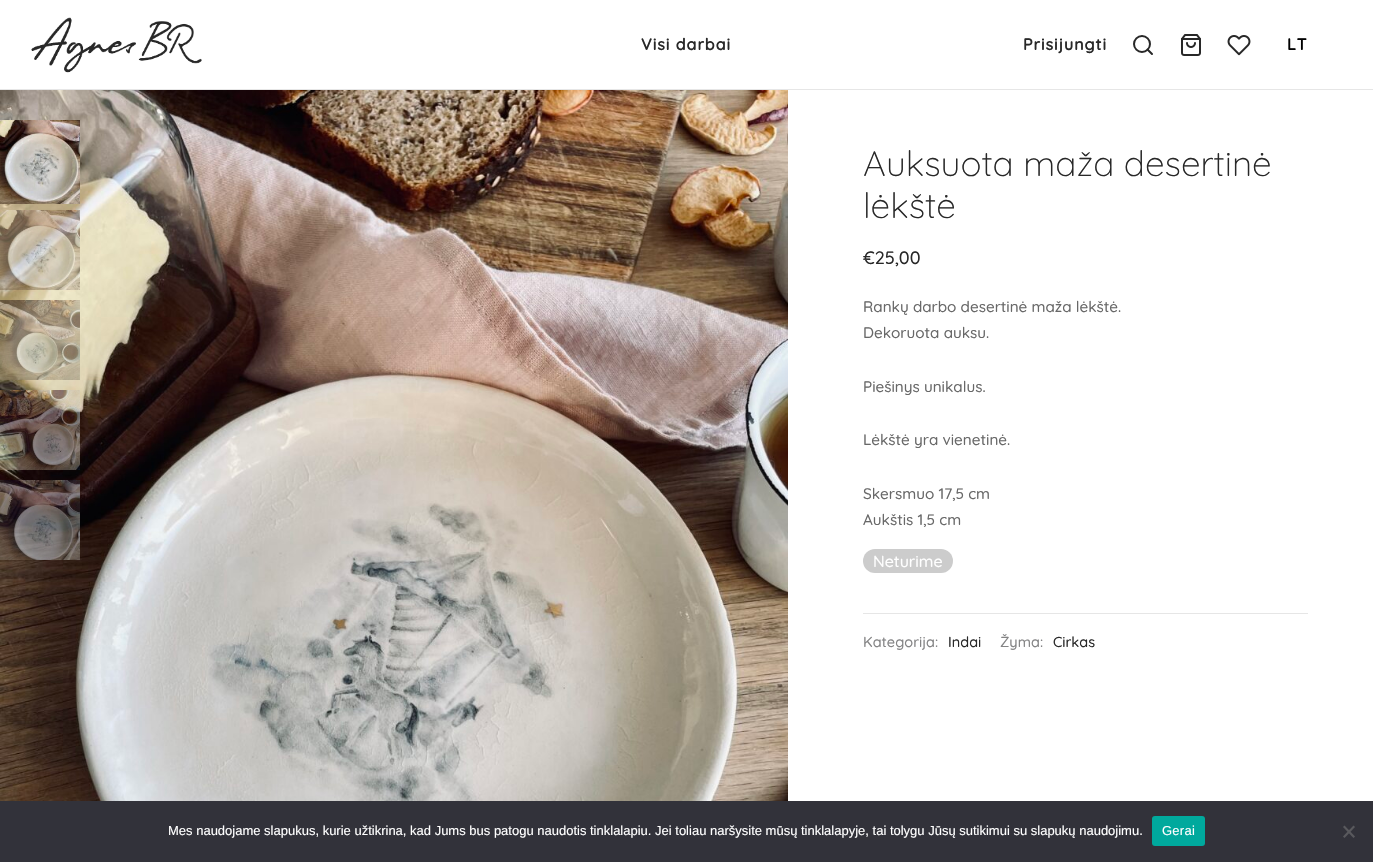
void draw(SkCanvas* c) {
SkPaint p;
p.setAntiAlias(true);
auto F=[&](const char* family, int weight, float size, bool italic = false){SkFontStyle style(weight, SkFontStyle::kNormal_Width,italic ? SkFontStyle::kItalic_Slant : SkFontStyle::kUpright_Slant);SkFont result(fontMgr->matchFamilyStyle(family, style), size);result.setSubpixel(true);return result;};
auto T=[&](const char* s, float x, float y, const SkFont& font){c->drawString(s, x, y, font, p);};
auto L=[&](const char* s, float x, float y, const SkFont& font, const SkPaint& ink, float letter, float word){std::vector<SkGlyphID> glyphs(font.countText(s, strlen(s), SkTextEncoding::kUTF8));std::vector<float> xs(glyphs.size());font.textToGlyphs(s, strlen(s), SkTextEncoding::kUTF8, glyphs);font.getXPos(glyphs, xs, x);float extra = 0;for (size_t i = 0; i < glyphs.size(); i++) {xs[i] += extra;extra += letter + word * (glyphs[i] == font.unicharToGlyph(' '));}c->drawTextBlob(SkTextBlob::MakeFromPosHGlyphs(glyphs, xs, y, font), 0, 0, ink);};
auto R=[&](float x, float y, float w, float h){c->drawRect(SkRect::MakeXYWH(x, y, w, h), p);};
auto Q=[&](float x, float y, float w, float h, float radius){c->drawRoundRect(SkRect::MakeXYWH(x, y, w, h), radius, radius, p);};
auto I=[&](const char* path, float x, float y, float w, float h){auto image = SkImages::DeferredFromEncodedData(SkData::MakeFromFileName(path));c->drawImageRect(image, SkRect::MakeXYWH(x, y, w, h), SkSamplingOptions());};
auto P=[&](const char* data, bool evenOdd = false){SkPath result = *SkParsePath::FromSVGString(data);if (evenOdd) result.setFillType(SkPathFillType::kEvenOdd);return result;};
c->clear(0xffffffff);
I("1.png",31,17,171,56);
auto f1 = F("Quicksand",700,16);
p.setColor(0xff282828);
L("Visi darbai",641,50,f1,p,1,0);
L("Prisijungti",1023,50,f1,p,1,0);
p.setStroke(true);
p.setStrokeWidth(2);
c->drawCircle(1142,44,8,p);
p.setStrokeCap(SkPaint::kRound_Cap);
p.setStrokeJoin(SkPaint::kRound_Join);
c->drawPath(P("M1152 54l-4.5-4.5"),p);
I("2.png",1181,34,20,22);
I("3.png",1227,35,24,21);
p.setStroke(false);
p.setColor(0xff000000);
L("LT",1287,50,f1,p,1,0);
p.setColor(0xffe6e6e6);
R(0,89,1373,1);
I("4.png",0,90,788,711);
I("5.png",0,120,80,84);
I("6.png",0,210,80,80);
I("7.png",0,300,80,80);
I("8.png",0,390,80,80);
I("9.png",0,480,80,80);
auto f2 = F("Quicksand",300,35.25);
p.setColor(0xff282828);
T("Auksuota maža desertinė",863,176,f2);
T("lėkštė",863,218,f2);
auto f3 = F("Quicksand",500,18);
T("€25,00",863,264,f3);
auto f4 = F("Quicksand",500,15.25);
p.setColor(0xff686868);
T("Rankų darbo desertinė maža lėkštė.",863,312,f4);
T("Dekoruota auksu.",863,338,f4);
T("Piešinys unikalus.",863,392,f4);
T("Lėkštė yra vienetinė.",863,445,f4);
T("Skersmuo 17,5 cm",863,499,f4);
T("Aukštis 1,5 cm",863,525,f4);
p.setColor(0xffcccccc);
Q(863,549,90,24,12);
auto f5 = F("Quicksand",500,16);
p.setColor(0xffffffff);
T("Neturime",873,567,f5);
p.setColor(0xffe6e6e6);
R(863,613,445,1);
auto f6 = F("Quicksand",500,14.5);
p.setColor(0xff848485);
T("Kategorija:",863,647,f6);
p.setColor(0xff282828);
T("Indai",948,647,f6);
p.setColor(0xff848485);
T("Žyma:",1000,647,f6);
p.setColor(0xff282828);
T("Cirkas",1053,647,f6);
p.setColor(0xff32323a);
R(0,801,1373,61);
auto f7 = F("Liberation Sans",400,13);
p.setColor(0xffffffff);
T("Mes naudojame slapukus, kurie užtikrina, kad Jums bus patogu naudotis tinklalapiu. Jei toliau naršysite mūsų tinklalapyje, tai tolygu Jūsų sutikimui su slapukų naudojimu.",168,835,f7);
p.setColor(0xff00a99d);
Q(1152,816,53,30,3);
p.setColor(0xffffffff);
L("Gerai",1162,835,f7,p,.25,0);
p.setColor(0xff59595d);
c->drawPath(P("M1353.5 825.5l1.5 1.5l-10.5 11l-1.5-1.5z"),p);
c->drawPath(P("M1343 827l1.5-1.5l10.5 11l-1.5 1.5z"),p);
}
